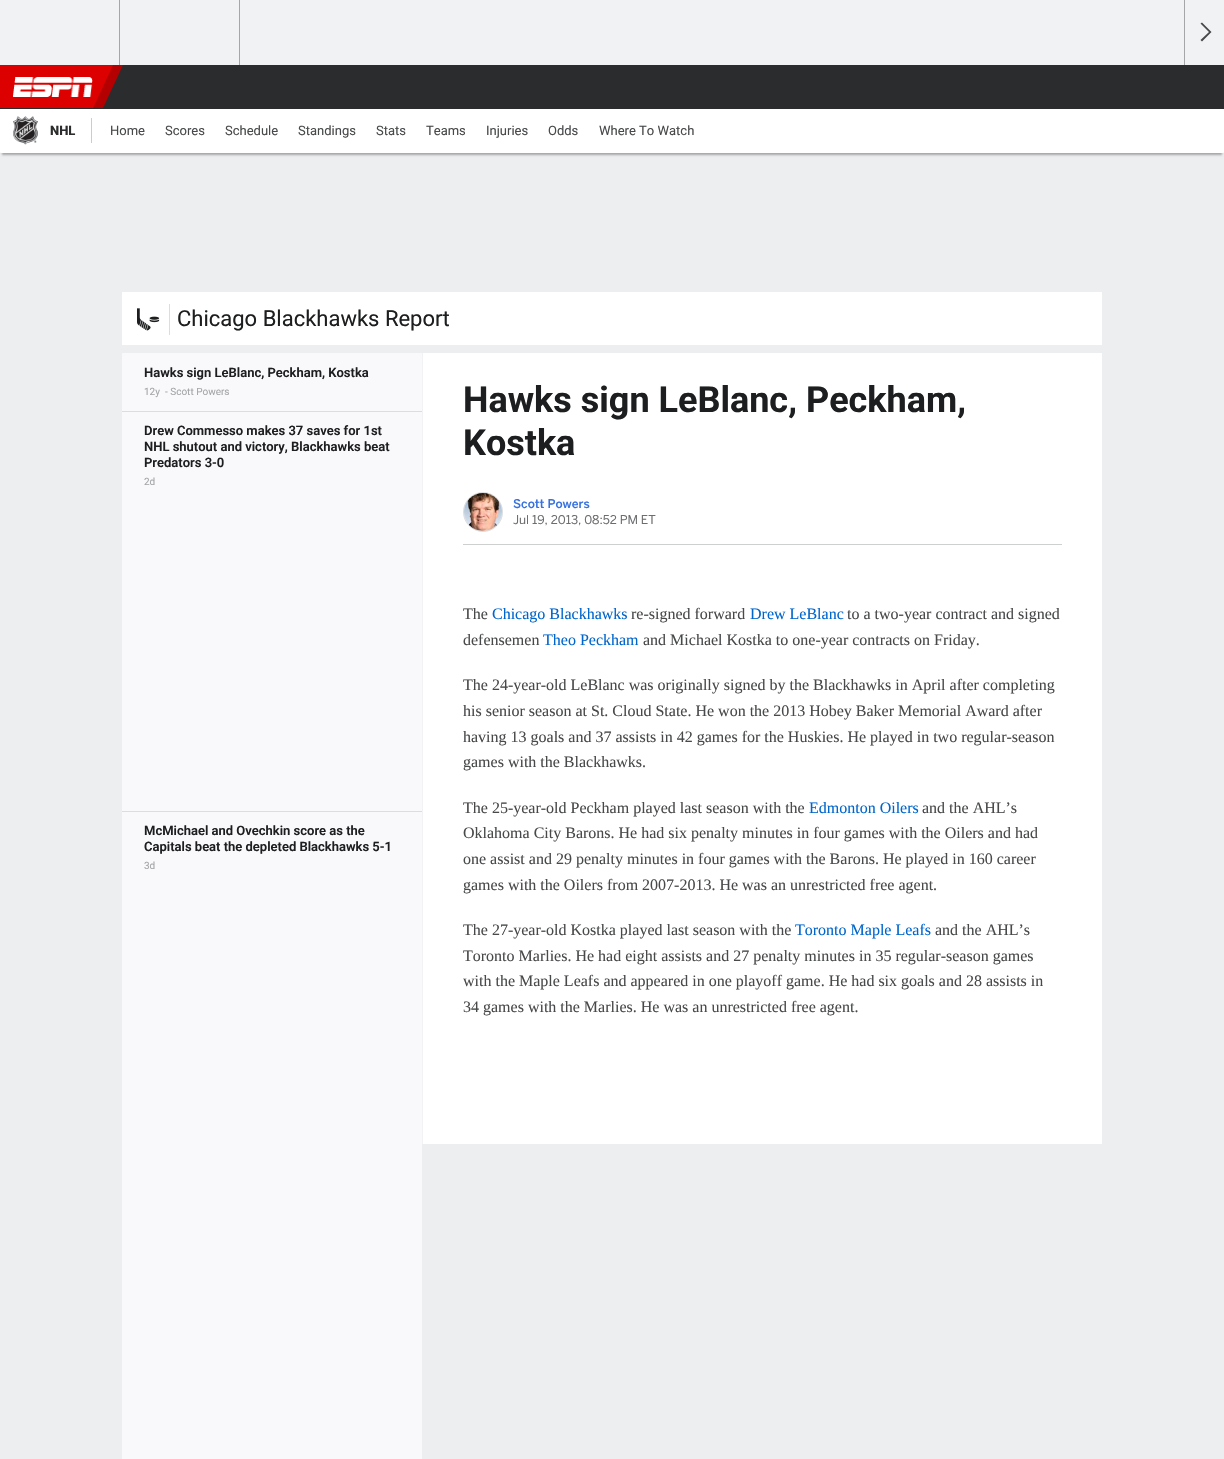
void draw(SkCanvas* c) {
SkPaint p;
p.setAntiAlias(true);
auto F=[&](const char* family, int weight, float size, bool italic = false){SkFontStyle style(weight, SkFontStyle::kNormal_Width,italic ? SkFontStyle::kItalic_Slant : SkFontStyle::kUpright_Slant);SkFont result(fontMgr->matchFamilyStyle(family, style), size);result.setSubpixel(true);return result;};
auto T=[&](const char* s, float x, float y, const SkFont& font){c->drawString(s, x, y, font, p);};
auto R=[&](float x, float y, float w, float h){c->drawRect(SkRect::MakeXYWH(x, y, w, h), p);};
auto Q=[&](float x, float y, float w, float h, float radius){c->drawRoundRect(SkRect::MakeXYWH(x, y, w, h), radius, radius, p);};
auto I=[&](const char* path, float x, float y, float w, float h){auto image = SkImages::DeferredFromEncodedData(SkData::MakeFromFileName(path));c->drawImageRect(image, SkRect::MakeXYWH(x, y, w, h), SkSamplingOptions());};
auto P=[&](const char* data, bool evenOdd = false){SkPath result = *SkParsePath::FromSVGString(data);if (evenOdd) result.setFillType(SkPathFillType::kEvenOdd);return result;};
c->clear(0xffedeef0);
p.setColor(0xfff1f2f3);
R(0,0,1224,65);
p.setColor(0xffa5a6a7);
R(119,0,1,65);
R(239,0,1,65);
R(1184,0,1,65);
p.setColor(0xff48494a);
c->drawPath(P("M1202 22.5l-1.5 1l8.5 8.5l-8.5 8l1.5 1.5l9.5-9.5z"),p);
p.setColor(0xff2b2c2d);
R(0,65,1224,44);
p.setColor(0xffb40000);
c->drawPath(P("M0 65h123l-20 43h-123z"),p);
p.setColor(0xffdd0000);
c->drawPath(P("M-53 65h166l-20 43h-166z"),p);
I("1.png",13,77,80,20);
p.setColor(0x4d000000);
p.setMaskFilter(SkMaskFilter::MakeBlur(kNormal_SkBlurStyle, 1));
c->drawRect(SkRect::MakeXYWH(2,115,1220,40),p);
p.setMaskFilter(nullptr);
p.setColor(0xffffffff);
Q(0,109,1224,44,1);
I("2.png",13,116,25,29);
auto f1 = F("Roboto",800,13);
p.setColor(0xff2b2c2d);
T("NHL",50,135,f1);
p.setColor(0xffcbccce);
R(91,118,1,25);
auto f2 = F("Roboto",400,13);
p.setColor(0xff48494a);
T("Home",110,135,f2);
T("Scores",165,135,f2);
T("Schedule",225,135,f2);
T("Standings",298,135,f2);
T("Stats",376,135,f2);
T("Teams",426,135,f2);
T("Injuries",486,135,f2);
T("Odds",548,135,f2);
T("Where To Watch",599,135,f2);
p.setColor(0xffffffff);
R(122,292,980,53);
p.setColor(0xffdcdddf);
R(169,304,1,31);
I("3.png",137,308,23,23);
auto f3 = F("Roboto",400,22);
p.setColor(0xff1d1e1f);
T("Chicago Blackhawks Report",177,326,f3);
p.setColor(0xfff9f9fb);
R(122,353,300,1106);
auto f4 = F("Roboto",600,13);
p.setColor(0xff1d1e1f);
T("Hawks sign LeBlanc, Peckham, Kostka",144,377,f4);
auto f5 = F("Roboto",400,10);
p.setColor(0xffa5a6a7);
T("12y",144,395,f5);
T("- Scott Powers",165,395,f5);
p.setColor(0xffdcdddf);
R(122,411,300,1);
p.setColor(0xff1d1e1f);
T("Drew Commesso makes 37 saves for 1st",144,435,f4);
T("NHL shutout and victory, Blackhawks beat",144,451,f4);
T("Predators 3-0",144,467,f4);
p.setColor(0xffa5a6a7);
T("2d",144,485,f5);
p.setColor(0xffdcdddf);
R(122,811,300,1);
p.setColor(0xff1d1e1f);
T("McMichael and Ovechkin score as the",144,835,f4);
T("Capitals beat the depleted Blackhawks 5-1",144,851,f4);
p.setColor(0xffa5a6a7);
T("3d",144,869,f5);
p.setColor(0xfff1f2f3);
R(422,353,1,791);
p.setColor(0xffffffff);
R(423,353,679,791);
auto f6 = F("Roboto",700,36);
p.setColor(0xff1d1e1f);
T("Hawks sign LeBlanc, Peckham,",463,412,f6);
T("Kostka",463,455,f6);
p.setColor(0xffcecfcf);
R(463,544,599,1);
p.setColor(0xfff1f2f3);
c->drawCircle(483,512,19.5,p);
p.setStroke(true);
p.setStrokeWidth(1);
p.setColor(0xffdcdddf);
c->drawCircle(483,512,19.5,p);
I("4.png",464,493,38,38);
auto f7 = F("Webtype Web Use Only",500,12);
p.setStroke(false);
p.setColor(0xff3772df);
T("Scott Powers",513,508,f7);
auto f8 = F("Webtype Web Use Only",400,12);
p.setColor(0xff6c6d6f);
T("Jul 19, 2013, 08:52 PM ET",513,524,f8);
auto f9 = F("Liberation Serif",400,16);
p.setColor(0xff48494a);
T("The",463,619,f9);
p.setColor(0xff0066cc);
T("Chicago Blackhawks",492,619,f9);
p.setColor(0xff48494a);
T("re-signed forward",631,619,f9);
p.setColor(0xff0066cc);
T("Drew LeBlanc",750,619,f9);
p.setColor(0xff48494a);
T("to a two-year contract and signed",847,619,f9);
T("defensemen",463,645,f9);
p.setColor(0xff0066cc);
T("Theo Peckham",543,645,f9);
p.setColor(0xff48494a);
T("and Michael Kostka to one-year contracts on Friday.",643,645,f9);
T("The 24-year-old LeBlanc was originally signed by the Blackhawks in April after completing",463,690,f9);
T("his senior season at St. Cloud State. He won the 2013 Hobey Baker Memorial Award after",463,716,f9);
T("having 13 goals and 37 assists in 42 games for the Huskies. He played in two regular-season",463,742,f9);
T("games with the Blackhawks.",463,767,f9);
T("The 25-year-old Peckham played last season with the",463,813,f9);
p.setColor(0xff0066cc);
T("Edmonton Oilers",809,813,f9);
p.setColor(0xff48494a);
T("and the AHL’s",922,813,f9);
T("Oklahoma City Barons. He had six penalty minutes in four games with the Oilers and had",463,838,f9);
T("one assist and 29 penalty minutes in four games with the Barons. He played in 160 career",463,864,f9);
T("games with the Oilers from 2007-2013. He was an unrestricted free agent.",463,890,f9);
T("The 27-year-old Kostka played last season with the",463,935,f9);
p.setColor(0xff0066cc);
T("Toronto Maple Leafs",795,935,f9);
p.setColor(0xff48494a);
T("and the AHL’s",935,935,f9);
T("Toronto Marlies. He had eight assists and 27 penalty minutes in 35 regular-season games",463,961,f9);
T("with the Maple Leafs and appeared in one playoff game. He had six goals and 28 assists in",463,986,f9);
T("34 games with the Marlies. He was an unrestricted free agent.",463,1012,f9);
}
